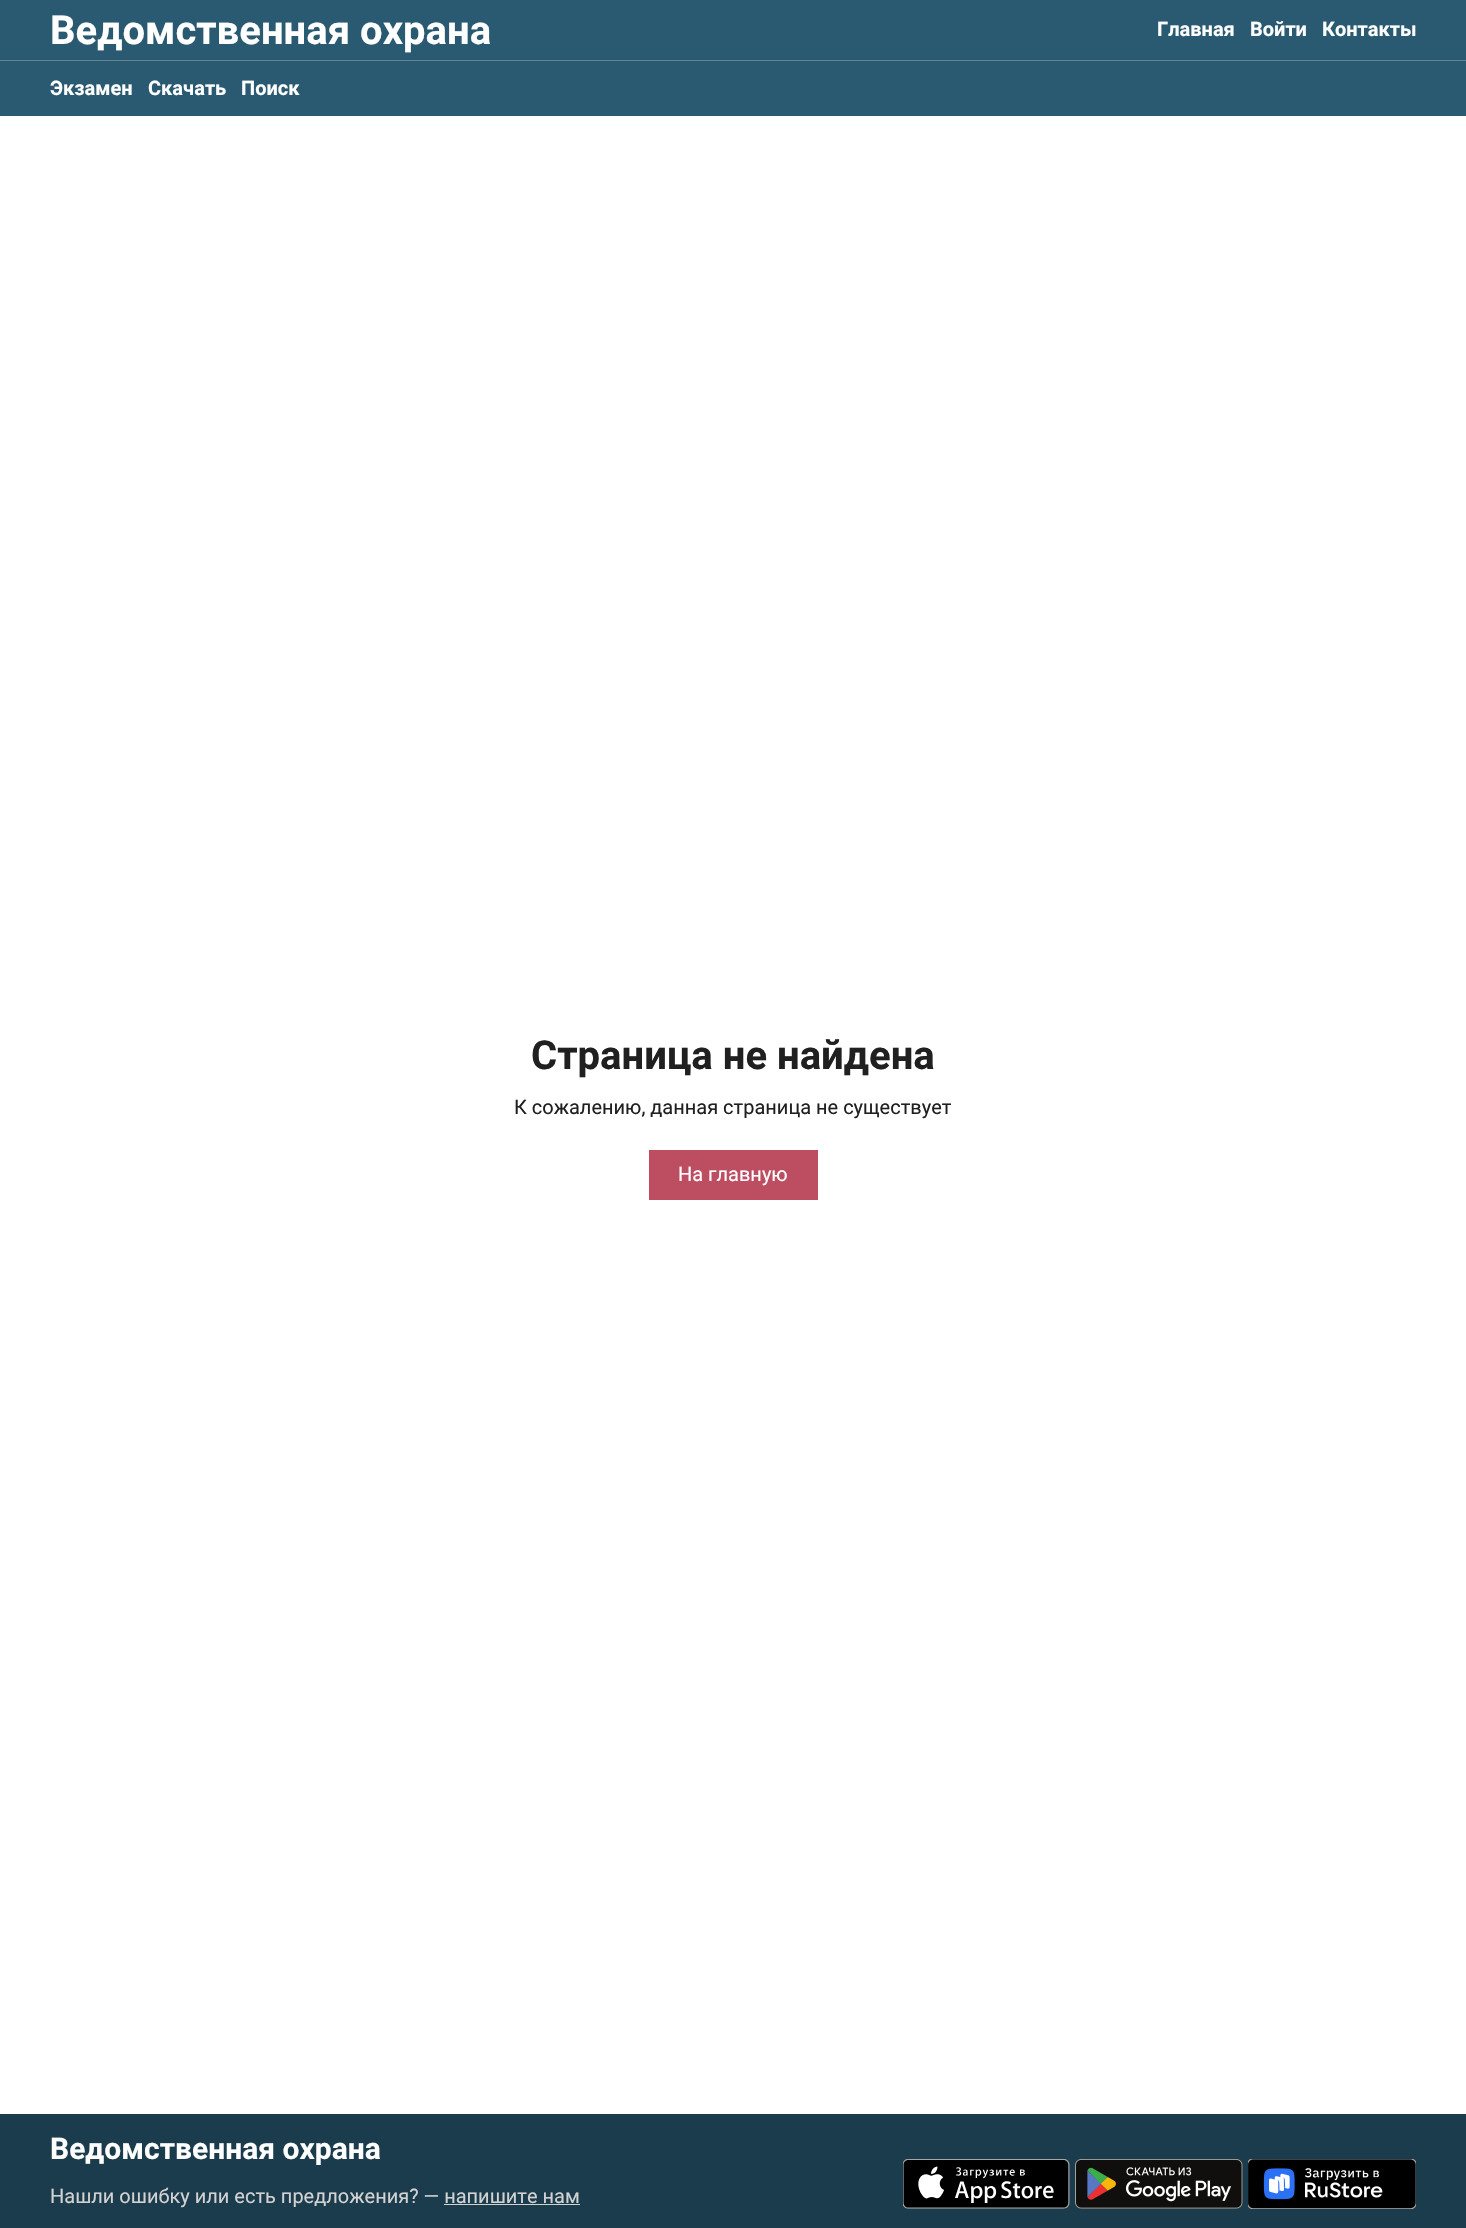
void draw(SkCanvas* c) {
SkPaint p;
p.setAntiAlias(true);
auto F=[&](const char* family, int weight, float size, bool italic = false){SkFontStyle style(weight, SkFontStyle::kNormal_Width,italic ? SkFontStyle::kItalic_Slant : SkFontStyle::kUpright_Slant);SkFont result(fontMgr->matchFamilyStyle(family, style), size);result.setSubpixel(true);return result;};
auto T=[&](const char* s, float x, float y, const SkFont& font){c->drawString(s, x, y, font, p);};
auto R=[&](float x, float y, float w, float h){c->drawRect(SkRect::MakeXYWH(x, y, w, h), p);};
auto I=[&](const char* path, float x, float y, float w, float h){auto image = SkImages::DeferredFromEncodedData(SkData::MakeFromFileName(path));c->drawImageRect(image, SkRect::MakeXYWH(x, y, w, h), SkSamplingOptions());};
c->clear(0xffffffff);
p.setColor(0xff295a71);
R(0,0,1466,116);
auto f1 = F("Roboto",700,40);
p.setColor(0xffffffff);
T("Ведомственная охрана",50,44,f1);
auto f2 = F("Roboto",700,20);
T("Главная",1157,36,f2);
T("Войти",1250,36,f2);
T("Контакты",1322,36,f2);
p.setColor(0xff648493);
R(0,60,1466,1);
p.setColor(0xffffffff);
T("Экзамен",50,95,f2);
T("Скачать",148,95,f2);
T("Поиск",241,95,f2);
p.setColor(0xff202020);
T("Страница не найдена",531,1069,f1);
auto f3 = F("Roboto",400,20);
T("К сожалению, данная страница не существует",514,1114,f3);
p.setColor(0xffbd4e62);
R(649,1150,169,50);
p.setColor(0xffffffff);
T("На главную",678,1181,f3);
p.setColor(0xff1b3c4c);
R(0,2114,1466,114);
auto f4 = F("Roboto",700,30);
p.setColor(0xffffffff);
T("Ведомственная охрана",50,2159,f4);
p.setColor(0xffd2d2d2);
T("Нашли ошибку или есть предложения? — напишите нам",50,2203,f3);
R(444,2204,136,1);
I("1.png",903,2159,167,50);
I("2.png",1075,2159,168,50);
I("3.png",1248,2159,168,50);
}
